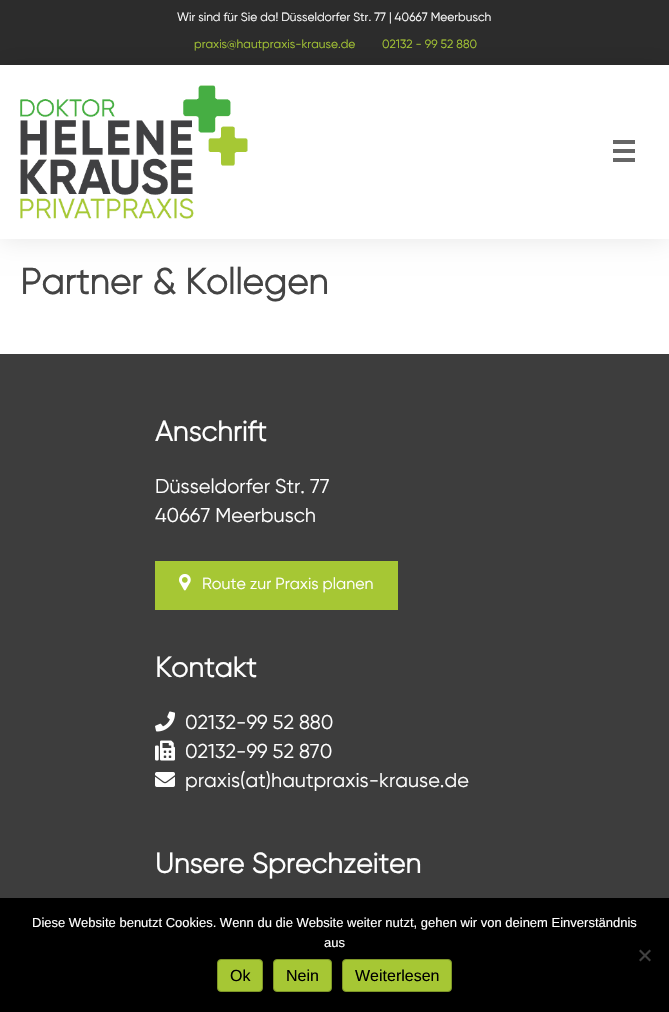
void draw(SkCanvas* c) {
SkPaint p;
p.setAntiAlias(true);
auto F=[&](const char* family, int weight, float size, bool italic = false){SkFontStyle style(weight, SkFontStyle::kNormal_Width,italic ? SkFontStyle::kItalic_Slant : SkFontStyle::kUpright_Slant);SkFont result(fontMgr->matchFamilyStyle(family, style), size);result.setSubpixel(true);return result;};
auto T=[&](const char* s, float x, float y, const SkFont& font){c->drawString(s, x, y, font, p);};
auto R=[&](float x, float y, float w, float h){c->drawRect(SkRect::MakeXYWH(x, y, w, h), p);};
auto I=[&](const char* path, float x, float y, float w, float h){auto image = SkImages::DeferredFromEncodedData(SkData::MakeFromFileName(path));c->drawImageRect(image, SkRect::MakeXYWH(x, y, w, h), SkSamplingOptions());};
auto P=[&](const char* data, bool evenOdd = false){SkPath result = *SkParsePath::FromSVGString(data);if (evenOdd) result.setFillType(SkPathFillType::kEvenOdd);return result;};
c->clear(0xffffffff);
p.setColor(0xff2c2c2c);
R(0,0,669,65);
auto f1 = F("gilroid",400,12);
p.setColor(0xffffffff);
T("Wir sind für Sie da! Düsseldorfer Str. 77 | 40667 Meerbusch",177,21,f1);
p.setColor(0xffa6c734);
T("praxis@hautpraxis-krause.de",194,48,f1);
T("02132 - 99 52 880",382,48,f1);
c->save();
c->clipPath(P("M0 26h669v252h-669zm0 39h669v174h-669z",true),true);
p.setColor(0x1a000000);
p.setMaskFilter(SkMaskFilter::MakeBlur(kNormal_SkBlurStyle, 12.5));
c->drawRect(SkRect::MakeXYWH(0,65,669,174),p);
p.setMaskFilter(nullptr);
c->restore();
I("1.png",20,85,228,134);
p.setColor(0xff666666);
R(613,140,22,4);
R(613,149,22,4);
R(613,158,22,4);
auto f2 = F("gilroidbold",700,36);
p.setColor(0xff444444);
T("Partner & Kollegen",20,294,f2);
p.setColor(0xff3d3d3d);
R(0,354,669,544);
auto f3 = F("gilroidbold",700,28);
p.setColor(0xffffffff);
T("Anschrift",155,441,f3);
auto f4 = F("gilroid",400,20);
T("Düsseldorfer Str. 77",155,493,f4);
T("40667 Meerbusch",155,522,f4);
p.setColor(0xffa6c734);
R(155,561,243,49);
I("2.png",179,574,12,17);
auto f5 = F("gilroid",400,16);
p.setColor(0xffffffff);
T("Route zur Praxis planen",202,589,f5);
T("Kontakt",155,677,f3);
I("3.png",155,711,20,21);
T("02132-99 52 880",185,729,f4);
I("4.png",155,740,20,21);
T("02132-99 52 870",185,758,f4);
I("5.png",155,772,20,15);
T("praxis(at)hautpraxis-krause.de",185,787,f4);
T("Unsere Sprechzeiten",155,873,f3);
p.setColor(0xff000000);
R(0,898,669,114);
auto f6 = F("Liberation Sans",400,13);
p.setColor(0xffffffff);
T("Diese Website benutzt Cookies. Wenn du die Website weiter nutzt, gehen wir von deinem Einverständnis",32,927,f6);
T("aus",324,947,f6);
p.setColor(0xff404040);
c->drawPath(P("M649.5 949.5l1.5 1.5l-10.5 10.5l-1.5-1.5z"),p);
c->drawPath(P("M639 951l1.5-1.5l10.5 10.5l-1.5 1.5z"),p);
p.setColor(0xffa6c734);
c->drawRoundRect(SkRect::MakeXYWH(217.5,959.5,45,32),3.5,3.5,p);
p.setStroke(true);
p.setStrokeWidth(1);
p.setColor(0xff7e9627);
c->drawRoundRect(SkRect::MakeXYWH(217.5,959.5,45,32),3.5,3.5,p);
auto f7 = F("Liberation Sans",400,16);
p.setStroke(false);
p.setColor(0xff000000);
T("Ok",230,981,f7);
p.setColor(0xffa6c734);
c->drawRoundRect(SkRect::MakeXYWH(273.5,959.5,58,32),3.5,3.5,p);
p.setStroke(true);
p.setColor(0xff7e9627);
c->drawRoundRect(SkRect::MakeXYWH(273.5,959.5,58,32),3.5,3.5,p);
p.setStroke(false);
p.setColor(0xff000000);
T("Nein",286,981,f7);
p.setColor(0xffa6c734);
c->drawRoundRect(SkRect::MakeXYWH(342.5,959.5,109,32),3.5,3.5,p);
p.setStroke(true);
p.setColor(0xff7e9627);
c->drawRoundRect(SkRect::MakeXYWH(342.5,959.5,109,32),3.5,3.5,p);
p.setStroke(false);
p.setColor(0xff000000);
T("Weiterlesen",355,981,f7);
}
